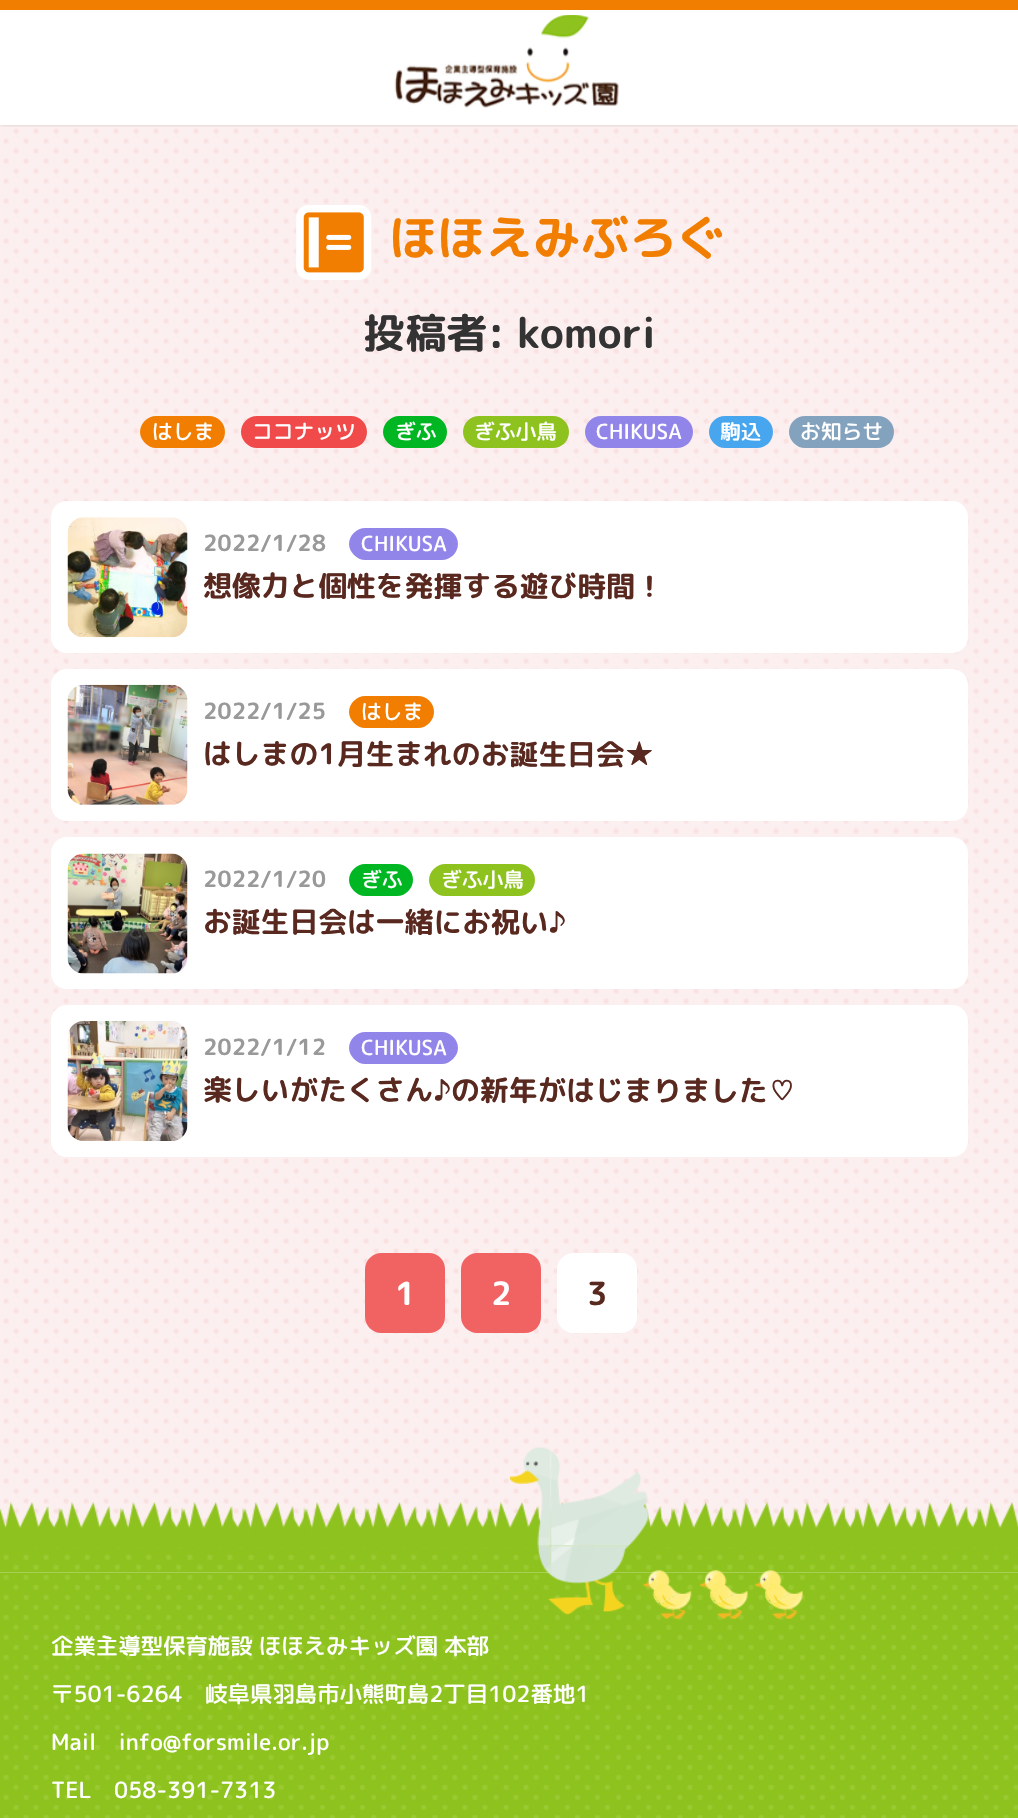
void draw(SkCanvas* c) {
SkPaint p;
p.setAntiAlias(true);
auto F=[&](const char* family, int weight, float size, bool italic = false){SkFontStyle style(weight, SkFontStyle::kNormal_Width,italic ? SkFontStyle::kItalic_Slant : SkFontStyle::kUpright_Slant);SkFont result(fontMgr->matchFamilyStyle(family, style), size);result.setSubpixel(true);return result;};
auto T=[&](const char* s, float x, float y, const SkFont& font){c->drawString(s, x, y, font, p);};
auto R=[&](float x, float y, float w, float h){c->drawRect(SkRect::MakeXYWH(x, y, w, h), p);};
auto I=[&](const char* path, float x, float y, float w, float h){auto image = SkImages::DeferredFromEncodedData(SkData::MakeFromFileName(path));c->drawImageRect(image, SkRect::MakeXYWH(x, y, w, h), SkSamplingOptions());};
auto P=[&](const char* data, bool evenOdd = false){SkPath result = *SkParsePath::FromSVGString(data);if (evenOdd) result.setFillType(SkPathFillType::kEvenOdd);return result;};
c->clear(0xffffffff);
I("2.png",0,125,1018,1448);
c->save();
c->clipRect(SkRect::MakeXYWH(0,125,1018,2));
p.setColor(0x26000000);
p.setMaskFilter(SkMaskFilter::MakeBlur(kNormal_SkBlurStyle, 2));
c->drawRect(SkRect::MakeXYWH(0,0,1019,125),p);
p.setMaskFilter(nullptr);
c->restore();
p.setColor(0xfff17e00);
R(0,0,1018,10);
I("1.png",394,15,225,93);
I("3.png",296,205,76,75);
auto f1 = F("Rounded Mplus 1c Bold",700,48);
T("ほほえみぶろぐ",389,255,f1);
auto f2 = F("Rounded Mplus 1c Bold",700,41.5);
p.setColor(0xff333333);
T("投稿者: komori",363,348,f2);
p.setColor(0xfff17e00);
c->drawPath(P("M156 416h53c9 0 16 7 16 16c0 9-7 16-16 16h-53c-8 0-16-8-16-16c0-9 8-16 16-16z"),p);
auto f3 = F("Rounded Mplus 1c",500,20.75);
p.setColor(0xffffffff);
T("はしま",152,439,f3);
p.setColor(0xfff04a4a);
c->drawPath(P("M257 416h94c9 0 16 7 16 16c0 9-7 16-16 16h-94c-9 0-16-8-16-16c0-9 7-16 16-16z"),p);
p.setColor(0xffffffff);
T("ココナッツ",252,439,f3);
p.setColor(0xff00b622);
c->drawPath(P("M399 416h32c9 0 16 7 16 16c0 9-7 16-16 16h-32c-8 0-16-8-16-16c0-9 8-16 16-16z"),p);
p.setColor(0xffffffff);
T("ぎふ",395,439,f3);
p.setColor(0xff8ec31f);
c->drawPath(P("M479 416h74c9 0 16 7 16 16c0 9-7 16-16 16h-74c-9 0-16-8-16-16c0-9 7-16 16-16z"),p);
p.setColor(0xffffffff);
T("ぎふ小鳥",474,439,f3);
p.setColor(0xff9285e9);
c->drawPath(P("M601 416h76c9 0 16 7 16 16c0 9-7 16-16 16h-76c-9 0-16-8-16-16c0-9 7-16 16-16z"),p);
p.setColor(0xffffffff);
T("CHIKUSA",596,439,f3);
p.setColor(0xff48a6ef);
c->drawPath(P("M725 416h32c9 0 16 7 16 16c0 9-7 16-16 16h-32c-9 0-16-8-16-16c0-9 7-16 16-16z"),p);
p.setColor(0xffffffff);
T("駒込",720,439,f3);
p.setColor(0xff83a2bd);
c->drawPath(P("M805 416h73c9 0 16 7 16 16c0 9-7 16-16 16h-73c-9 0-16-8-16-16c0-9 7-16 16-16z"),p);
p.setColor(0xffffffff);
T("お知らせ",800,439,f3);
c->drawPath(P("M67 501h885c9 0 16 7 16 16v120c0 9-7 16-16 16h-885c-9 0-16-7-16-16v-120c0-9 7-16 16-16z"),p);
I("4.png",67,517,121,121);
auto f4 = F("Rounded Mplus 1c Bold",700,22.4);
p.setColor(0xff999999);
T("2022/1/28",203,551,f4);
p.setColor(0xff9285e9);
c->drawPath(P("M365 528h77c8 0 16 7 16 16c0 9-8 16-16 16h-77c-8 0-16-8-16-16c0-9 8-16 16-16z"),p);
p.setColor(0xffffffff);
c->save();
c->rotate(.1,361,551);
T("CHIKUSA",361,551,f3);
c->restore();
auto f5 = F("Rounded Mplus 1c Bold",700,28.8);
p.setColor(0xff59281f);
c->save();
c->rotate(.1,203,596);
T("想像力と個性を発揮する遊び時間！",203,596,f5);
c->restore();
p.setColor(0xffffffff);
c->drawPath(P("M67 669h885c9 0 16 7 16 16v120c0 9-7 16-16 16h-885c-9 0-16-7-16-16v-120c0-9 7-16 16-16z"),p);
I("5.png",67,684,121,121);
p.setColor(0xff999999);
T("2022/1/25",203,719,f4);
p.setColor(0xfff17e00);
c->drawPath(P("M365 696h53c9 0 16 7 16 16c0 8-7 16-16 16h-53c-8 0-16-8-16-16c0-9 8-16 16-16z"),p);
p.setColor(0xffffffff);
c->save();
c->rotate(.1,361,719);
T("はしま",361,719,f3);
c->restore();
p.setColor(0xff59281f);
c->save();
c->rotate(.1,203,764);
T("はしまの1月生まれのお誕生日会★",203,764,f5);
c->restore();
p.setColor(0xffffffff);
c->drawPath(P("M67 837h885c9 0 16 7 16 16v120c0 9-7 16-16 16h-885c-9 0-16-7-16-16v-120c0-9 7-16 16-16z"),p);
I("6.png",67,853,121,121);
p.setColor(0xff999999);
T("2022/1/20",203,887,f4);
p.setColor(0xff00b622);
c->drawPath(P("M365 864h32c9 0 16 7 16 16c0 8-7 16-16 16h-32c-8 0-16-8-16-16c0-9 8-16 16-16z"),p);
p.setColor(0xffffffff);
c->save();
c->rotate(.1,361,887);
T("ぎふ",361,887,f3);
c->restore();
p.setColor(0xff8ec31f);
c->drawPath(P("M445 864h74c9 0 16 7 16 16c0 9-7 16-16 16h-74c-9 0-16-8-16-16c0-9 8-16 16-16z"),p);
p.setColor(0xffffffff);
c->save();
c->rotate(.1,441,887);
T("ぎふ小鳥",441,887,f3);
c->restore();
p.setColor(0xff59281f);
c->save();
c->rotate(.1,203,932);
T("お誕生日会は一緒にお祝い♪",203,932,f5);
c->restore();
p.setColor(0xffffffff);
c->drawPath(P("M67 1005h885c9 0 16 7 16 16v120c0 9-7 16-16 16h-885c-9 0-16-7-16-16v-120c0-9 7-16 16-16z"),p);
I("7.png",67,1021,121,120);
p.setColor(0xff999999);
T("2022/1/12",203,1055,f4);
p.setColor(0xff9285e9);
c->drawPath(P("M365 1032h77c8 0 16 7 16 16c0 8-8 16-16 16h-77c-8 0-16-8-16-16c0-9 8-16 16-16z"),p);
p.setColor(0xffffffff);
c->save();
c->rotate(.1,361,1055);
T("CHIKUSA",361,1055,f3);
c->restore();
p.setColor(0xff59281f);
c->save();
c->rotate(.1,203,1100);
T("楽しいがたくさん♪の新年がはじまりました♡",203,1100,f5);
c->restore();
p.setColor(0xfff16262);
c->drawPath(P("M381 1253h48c9 0 16 7 16 16v48c0 9-7 16-16 16h-48c-8 0-16-7-16-16v-48c0-9 8-16 16-16z"),p);
auto f6 = F("Rounded Mplus 1c Bold",700,32);
p.setColor(0xffffffff);
T("1",395,1305,f6);
p.setColor(0xfff16262);
c->drawPath(P("M477 1253h48c9 0 16 7 16 16v48c0 9-7 16-16 16h-48c-8 0-16-7-16-16v-48c0-9 8-16 16-16z"),p);
p.setColor(0xffffffff);
T("2",491,1305,f6);
c->drawPath(P("M573 1253h48c9 0 16 7 16 16v48c0 9-7 16-16 16h-48c-8 0-16-7-16-16v-48c0-9 8-16 16-16z"),p);
p.setColor(0xff59281f);
T("3",587,1305,f6);
I("8.png",0,1572,1018,246);
I("10.png",0,1502,1018,71);
I("9.png",510,1447,293,172);
auto f7 = F("Rounded Mplus 1c",500,22.4);
p.setColor(0xffffffff);
T("企業主導型保育施設 ほほえみキッズ園 本部",51,1654,f7);
T("〒501-6264　岐阜県羽島市小熊町島2丁目102番地1",51,1702,f7);
T("Mail　info@forsmile.or.jp",51,1750,f7);
T("TEL　058-391-7313",51,1798,f7);
}
